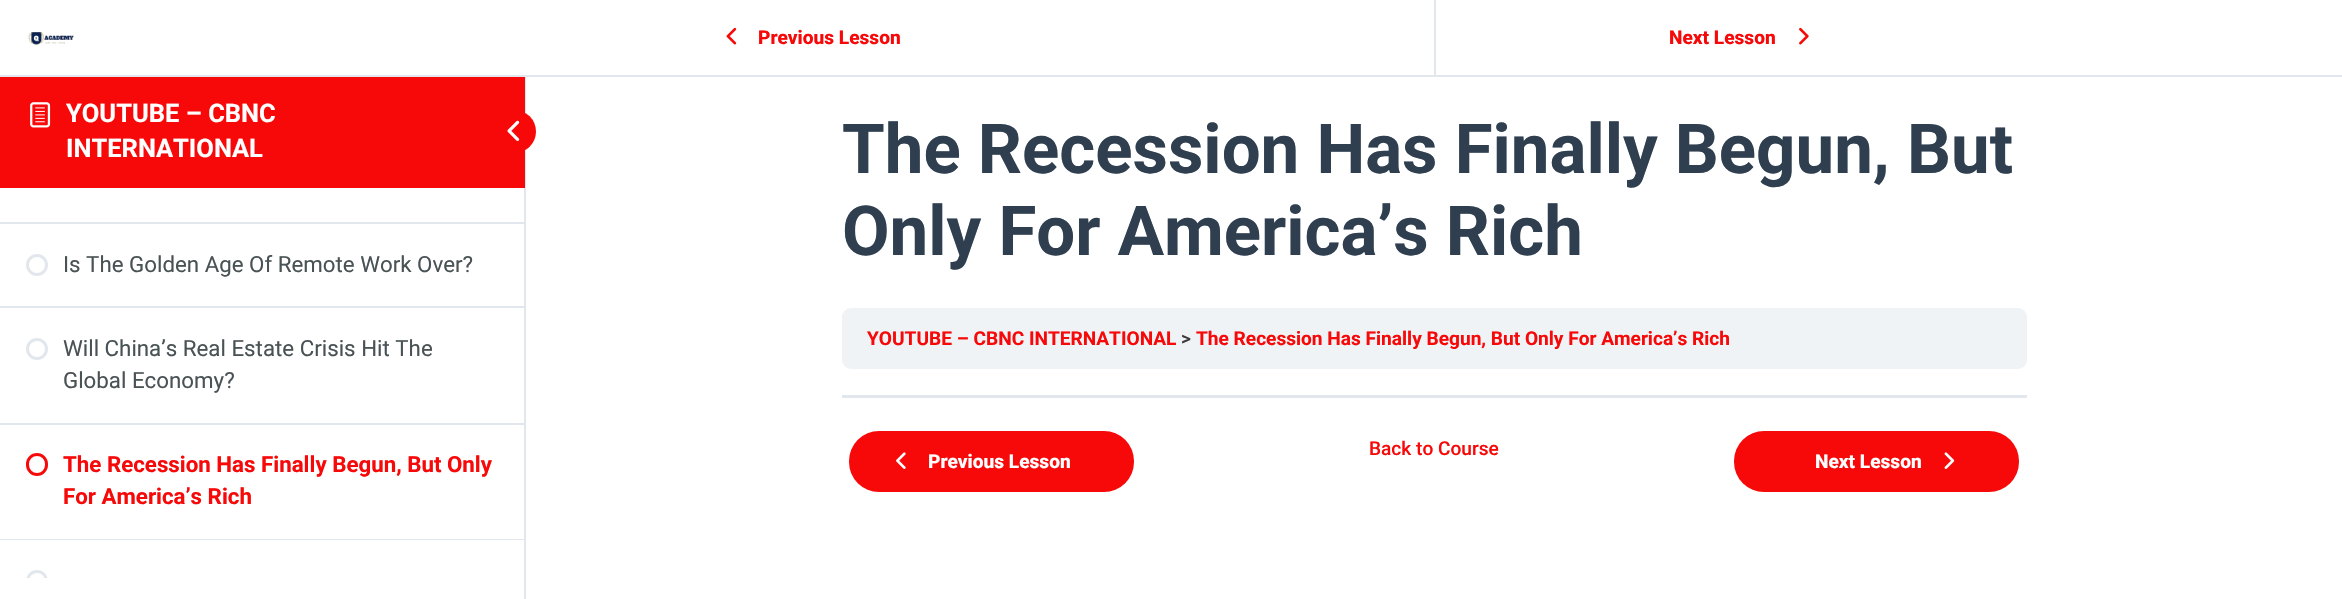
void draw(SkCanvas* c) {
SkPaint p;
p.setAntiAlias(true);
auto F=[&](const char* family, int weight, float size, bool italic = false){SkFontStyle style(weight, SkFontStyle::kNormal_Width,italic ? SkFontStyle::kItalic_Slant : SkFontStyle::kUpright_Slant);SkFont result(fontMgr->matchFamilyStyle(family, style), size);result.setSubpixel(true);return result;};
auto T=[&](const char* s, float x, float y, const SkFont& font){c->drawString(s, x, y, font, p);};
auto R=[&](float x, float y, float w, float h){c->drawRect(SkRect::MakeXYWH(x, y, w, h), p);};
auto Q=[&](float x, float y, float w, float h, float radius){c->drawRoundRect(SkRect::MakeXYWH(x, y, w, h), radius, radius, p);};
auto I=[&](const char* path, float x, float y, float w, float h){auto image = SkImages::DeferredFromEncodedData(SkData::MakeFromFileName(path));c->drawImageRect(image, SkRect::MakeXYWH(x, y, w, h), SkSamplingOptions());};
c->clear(0xffffffff);
p.setColor(0xffe2e7ed);
R(524,77,2,522);
p.setColor(0xfff70909);
R(0,77,525,111);
I("1.png",30,102,21,26);
auto f1 = F("Roboto",700,25.5);
p.setColor(0xffffffff);
T("YOUTUBE – CBNC",66,122,f1);
T("INTERNATIONAL",66,157,f1);
p.setColor(0xfff70909);
Q(491,110,45,43,21.5);
I("2.png",507,120,13,21);
p.setColor(0xffe2e7ed);
R(0,222,524,2);
R(0,306,524,2);
p.setStroke(true);
p.setStrokeWidth(3);
c->drawCircle(37,265,9.5,p);
auto f2 = F("Roboto",400,22.3);
p.setStroke(false);
p.setColor(0xff495255);
T("Is The Golden Age Of Remote Work Over?",63,272,f2);
p.setColor(0xffe2e7ed);
R(0,423,524,2);
p.setStroke(true);
c->drawCircle(37,349,9.5,p);
p.setStroke(false);
p.setColor(0xff495255);
T("Will China’s Real Estate Crisis Hit The",63,356,f2);
T("Global Economy?",63,388,f2);
p.setColor(0xffe2e7ed);
R(0,539,524,1);
p.setStroke(true);
p.setColor(0xfff70909);
c->drawRoundRect(SkRect::MakeXYWH(27.5,454.5,19,20),9.5,9.5,p);
auto f3 = F("Roboto",700,22.3);
p.setStroke(false);
T("The Recession Has Finally Begun, But Only",63,472,f3);
T("For America’s Rich",63,504,f3);
c->save();
c->clipRect(SkRect::MakeXYWH(0,188,524,390));
p.setStroke(true);
p.setColor(0xffe2e7ed);
c->drawRoundRect(SkRect::MakeXYWH(27.5,571.5,19,20),9.5,9.5,p);
c->restore();
p.setStroke(false);
R(0,75,2342,2);
I("3.png",28,32,46,13);
R(1434,0,2,75);
I("4.png",726,27,11,18);
auto f4 = F("Roboto",800,19.1);
p.setColor(0xfff70909);
T("Previous Lesson",758,44,f4);
T("Next Lesson",1669,44,f4);
I("5.png",1799,27,10,18);
auto f5 = F("Roboto",700,69);
p.setColor(0xff2f3f50);
T("The Recession Has Finally Begun, But",842,173,f5);
T("Only For America’s Rich",842,255,f5);
p.setColor(0xfff0f3f6);
Q(842,308,1185,61,9);
auto f6 = F("Roboto",700,19.1);
p.setColor(0xfff70909);
T("YOUTUBE – CBNC INTERNATIONAL",867,345,f6);
auto f7 = F("Roboto",500,19.1);
p.setColor(0xff3a3a3a);
T(">",1181,345,f7);
p.setColor(0xfff70909);
T("The Recession Has Finally Begun, But Only For America’s Rich",1196,345,f6);
p.setColor(0xffe2e7ed);
R(842,395,1185,3);
p.setColor(0xfff70909);
T("Back to Course",1369,455,f7);
Q(849,431,285,61,30);
I("6.png",896,452,10,17);
p.setColor(0xffffffff);
T("Previous Lesson",928,468,f4);
p.setColor(0xfff70909);
Q(1734,431,285,61,30);
p.setColor(0xffffffff);
T("Next Lesson",1815,468,f4);
I("7.png",1944,452,11,17);
}
